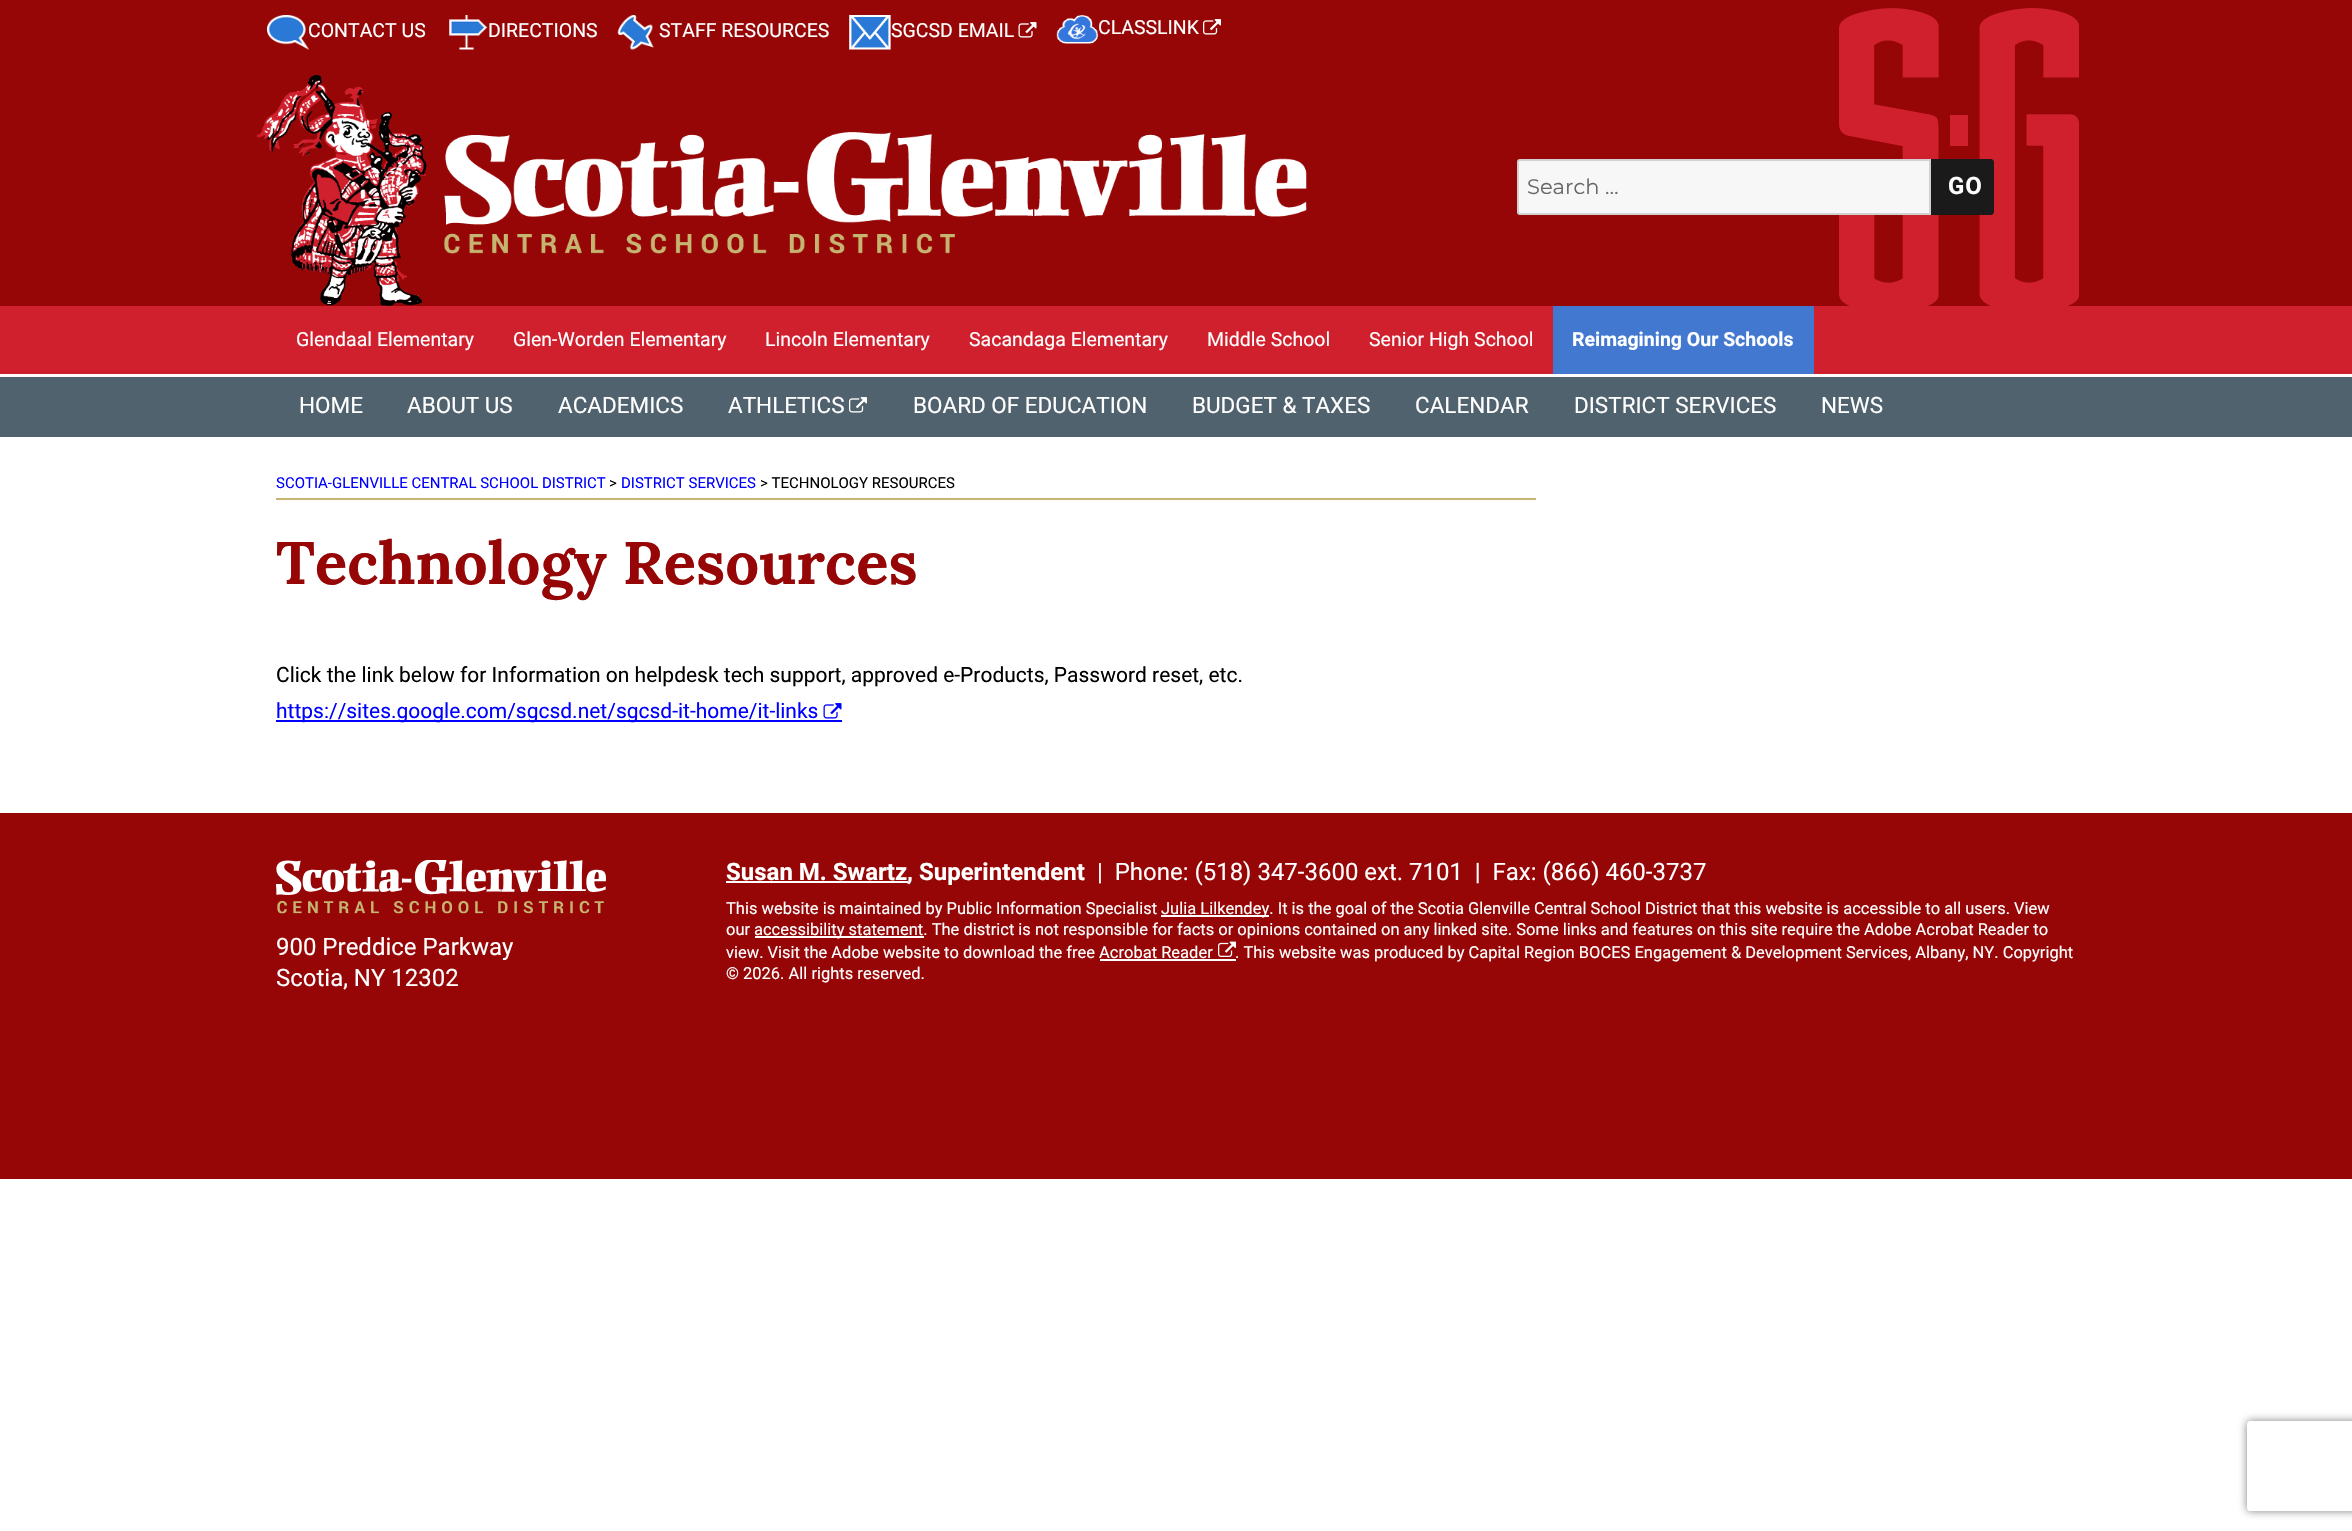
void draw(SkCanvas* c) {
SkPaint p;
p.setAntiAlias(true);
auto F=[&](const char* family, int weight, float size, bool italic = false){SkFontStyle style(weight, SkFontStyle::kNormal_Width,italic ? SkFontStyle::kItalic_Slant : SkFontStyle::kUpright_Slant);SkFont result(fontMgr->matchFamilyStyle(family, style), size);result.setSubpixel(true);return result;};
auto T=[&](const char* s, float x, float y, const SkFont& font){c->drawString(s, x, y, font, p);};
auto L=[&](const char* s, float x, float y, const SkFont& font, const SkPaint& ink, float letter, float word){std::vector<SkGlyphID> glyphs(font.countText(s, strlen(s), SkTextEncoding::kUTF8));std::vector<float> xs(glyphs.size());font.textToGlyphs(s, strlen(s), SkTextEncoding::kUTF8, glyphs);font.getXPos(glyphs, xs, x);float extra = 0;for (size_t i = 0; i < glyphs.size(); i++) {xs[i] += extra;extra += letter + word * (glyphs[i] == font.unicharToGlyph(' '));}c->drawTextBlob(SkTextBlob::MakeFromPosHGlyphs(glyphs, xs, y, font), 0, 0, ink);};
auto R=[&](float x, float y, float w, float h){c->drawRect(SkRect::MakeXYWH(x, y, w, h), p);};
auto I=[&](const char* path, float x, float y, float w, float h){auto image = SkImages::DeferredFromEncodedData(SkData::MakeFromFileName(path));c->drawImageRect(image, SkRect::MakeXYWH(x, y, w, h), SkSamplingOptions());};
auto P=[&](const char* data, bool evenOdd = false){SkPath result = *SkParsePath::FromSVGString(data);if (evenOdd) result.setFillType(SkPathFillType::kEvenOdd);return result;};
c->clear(0xffffffff);
p.setColor(0xff960606);
R(0,0,2352,306);
I("1.png",1839,8,240,298);
I("2.png",267,15,42,35);
auto f1 = F("Roboto",400,19.5);
p.setColor(0xffffffff);
T("CONTACT US",308,37,f1);
I("3.png",449,15,39,35);
T("DIRECTIONS",488,37,f1);
I("4.png",617,15,37,35);
T("STAFF RESOURCES",659,37,f1);
I("5.png",849,15,42,35);
T("SGCSD EMAIL",891,37,f1);
I("6.png",1018,22,19,16);
I("7.png",1056,15,42,29);
T("CLASSLINK",1098,34,f1);
I("8.png",1203,19,18,16);
I("9.png",256,75,1051,231);
p.setColor(0xfff7f7f7);
c->drawPath(P("M1520 160h410v54h-410c-1 0-2-1-2-2v-50c0-1 1-2 2-2z"),p);
p.setStroke(true);
p.setStrokeWidth(2);
p.setColor(0xffd1d1d1);
c->drawPath(P("M1520 160h410v54h-410c-1 0-2-1-2-2v-50c0-1 1-2 2-2z"),p);
auto f2 = F("Montserrat",100,21);
p.setStroke(false);
p.setColor(0xff686868);
T("Search …",1527,194,f2);
p.setColor(0xff1a1a1a);
c->drawPath(P("M1931 159h60c1.5 0 3 1.5 3 3v50c0 1.5-1.5 3-3 3h-60z"),p);
auto f3 = F("Roboto",700,24);
p.setColor(0xffffffff);
L("GO",1948,194,f3,p,1,0);
p.setColor(0xffd0202e);
R(0,306,2352,68);
p.setColor(0xffffffff);
T("Glendaal Elementary",296,346,f1);
T("Glen-Worden Elementary",513,346,f1);
T("Lincoln Elementary",765,346,f1);
T("Sacandaga Elementary",969,346,f1);
T("Middle School",1207,346,f1);
T("Senior High School",1369,346,f1);
p.setColor(0xff4278d0);
R(1553,306,261,68);
auto f4 = F("Roboto",700,19.5);
p.setColor(0xffffffff);
T("Reimagining Our Schools",1572,346,f4);
p.setColor(0xff51626f);
R(0,377,2352,60);
auto f5 = F("Roboto",400,22.5);
p.setColor(0xffffffff);
T("HOME",299,413,f5);
T("ABOUT US",407,413,f5);
T("ACADEMICS",558,413,f5);
T("ATHLETICS",728,413,f5);
I("10.png",849,397,18,16);
T("BOARD OF EDUCATION",913,413,f5);
T("BUDGET & TAXES",1192,413,f5);
T("CALENDAR",1415,413,f5);
T("DISTRICT SERVICES",1574,413,f5);
T("NEWS",1821,413,f5);
p.setColor(0xffc6b571);
R(276,498,1260,2);
auto f6 = F("Roboto",400,15);
p.setColor(0xff0000ff);
T("SCOTIA-GLENVILLE CENTRAL SCHOOL DISTRICT",276,488,f6);
p.setColor(0xff000000);
T(">",609,488,f6);
p.setColor(0xff0000ff);
T("DISTRICT SERVICES",621,488,f6);
p.setColor(0xff000000);
T("> TECHNOLOGY RESOURCES",760,488,f6);
auto f7 = F("Lora",700,60);
p.setColor(0xff960606);
T("Technology Resources",276,584,f7);
auto f8 = F("Roboto",400,21);
p.setColor(0xff000000);
T("Click the link below for Information on helpdesk tech support, approved e-Products, Password reset, etc.",276,682,f8);
p.setColor(0xff0000ff);
R(276,720,566,2);
T("https://sites.google.com/sgcsd.net/sgcsd-it-home/it-links",276,718,f8);
I("11.png",823,703,19,16);
p.setColor(0xff960606);
R(0,813,2352,366);
I("12.png",276,860,330,54);
auto f9 = F("Roboto",400,24);
p.setColor(0xffffffff);
T("900 Preddice Parkway",276,955,f9);
T("Scotia, NY 12302",276,986,f9);
R(726,881,182,2);
T("Susan M. Swartz, Superintendent",726,880,f3);
T("|  Phone: (518) 347-3600 ext. 7101  |  Fax: (866) 460-3737",1097,880,f9);
auto f10 = F("Roboto",400,16.5);
T("This website is maintained by Public Information Specialist",726,914,f10);
R(1161,915,108,2);
T("Julia Lilkendey. It is the goal of the Scotia Glenville Central School District that this website is accessible to all users. View",1161,914,f10);
T("our",726,935,f10);
R(755,936,169,2);
T("accessibility statement. The district is not responsible for facts or opinions contained on any linked site. Some links and features on this site require the Adobe Acrobat Reader to",754,935,f10);
T("view. Visit the Adobe website to download the free Acrobat Reader",726,958,f10);
I("13.png",1218,941,18,16);
T(". This website was produced by Capital Region BOCES Engagement & Development Services, Albany, NY. Copyright",1235,958,f10);
R(1100,959,136,2);
T("© 2026. All rights reserved.",726,979,f10);
c->save();
c->clipPath(P("M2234 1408h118v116h-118zm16 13h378c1.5 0 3 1.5 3 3v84c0 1.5-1.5 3-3 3h-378c-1.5 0-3-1.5-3-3v-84c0-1.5 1.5-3 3-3z",true),true);
p.setColor(0xff808080);
p.setMaskFilter(SkMaskFilter::MakeBlur(kNormal_SkBlurStyle, 4));
c->drawRoundRect(SkRect::MakeXYWH(2247,1421,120,90),3,3,p);
p.setMaskFilter(nullptr);
c->restore();
}
